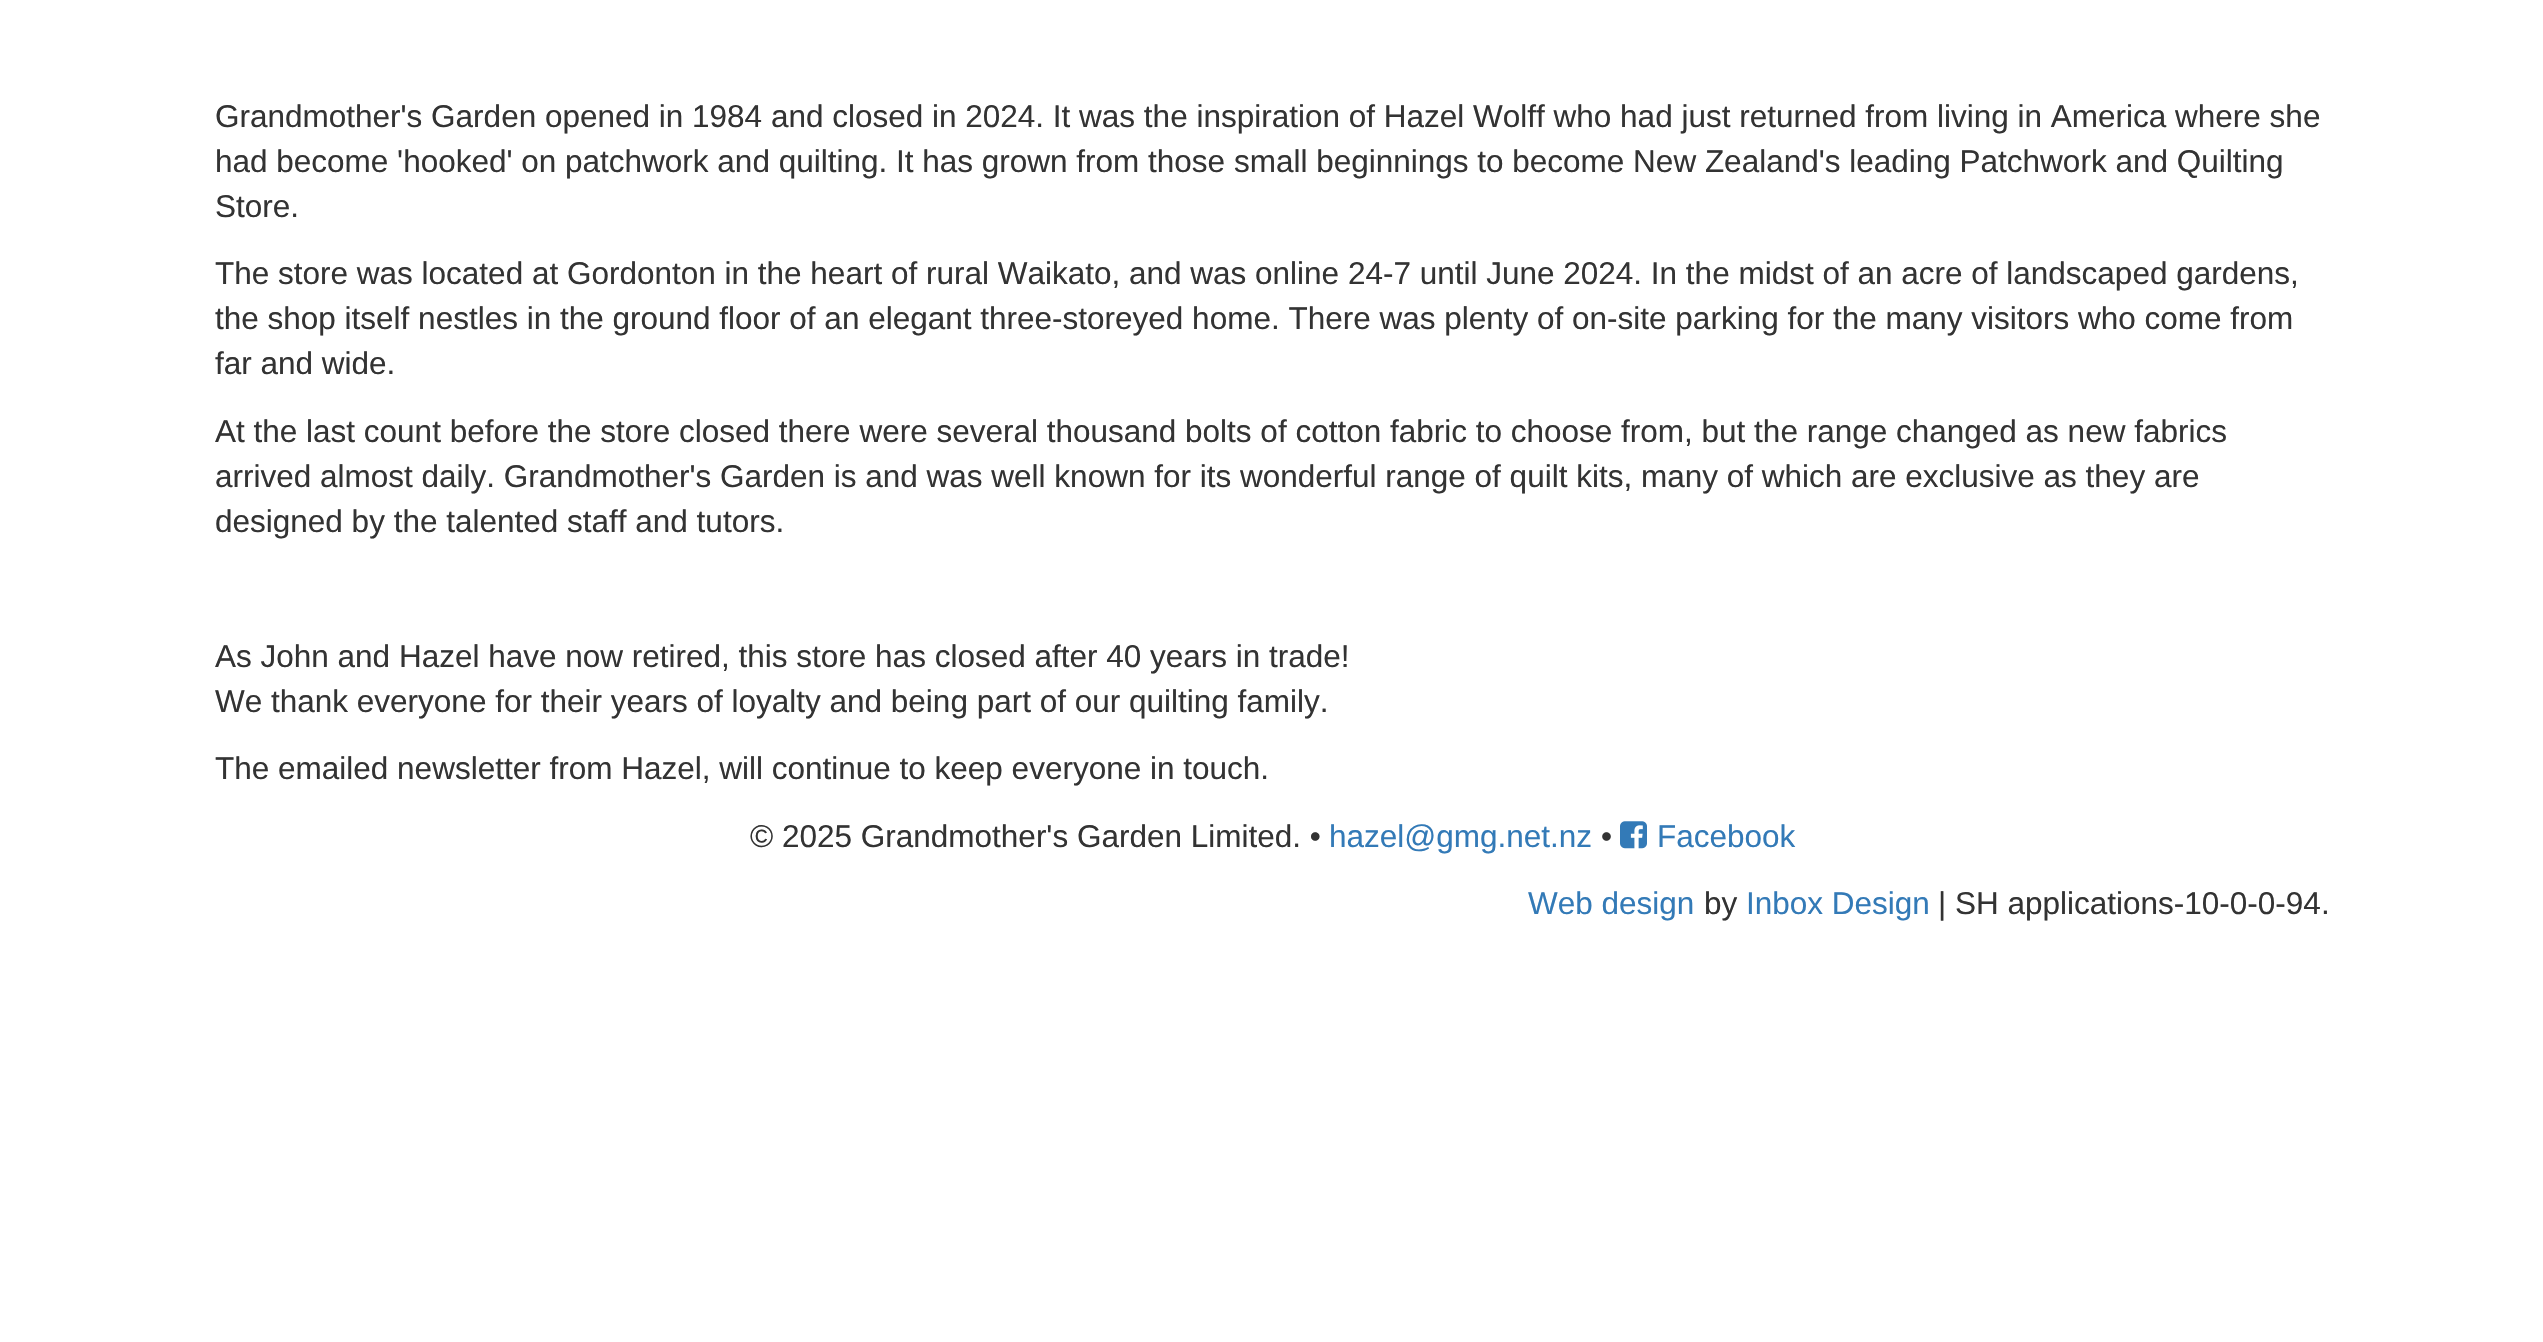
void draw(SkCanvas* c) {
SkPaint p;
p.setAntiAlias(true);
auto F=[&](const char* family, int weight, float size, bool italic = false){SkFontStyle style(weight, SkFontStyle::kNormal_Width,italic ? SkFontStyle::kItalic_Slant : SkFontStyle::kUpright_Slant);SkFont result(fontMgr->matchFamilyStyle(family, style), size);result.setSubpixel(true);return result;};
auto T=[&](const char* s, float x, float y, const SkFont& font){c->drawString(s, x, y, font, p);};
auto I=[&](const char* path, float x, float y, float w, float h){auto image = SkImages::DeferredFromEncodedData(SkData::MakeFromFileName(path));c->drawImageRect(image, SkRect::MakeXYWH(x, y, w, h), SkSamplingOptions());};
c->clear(0xffffffff);
auto f1 = F("Liberation Sans",400,31.5);
p.setColor(0xff333333);
T("Grandmother's Garden opened in 1984 and closed in 2024. It was the inspiration of Hazel Wolff who had just returned from living in America where she",215,127,f1);
T("had become 'hooked' on patchwork and quilting. It has grown from those small beginnings to become New Zealand's leading Patchwork and Quilting",215,172,f1);
T("Store.",215,217,f1);
T("The store was located at Gordonton in the heart of rural Waikato, and was online 24-7 until June 2024. In the midst of an acre of landscaped gardens,",215,284,f1);
T("the shop itself nestles in the ground floor of an elegant three-storeyed home. There was plenty of on-site parking for the many visitors who come from",215,329,f1);
T("far and wide.",215,374,f1);
T("At the last count before the store closed there were several thousand bolts of cotton fabric to choose from, but the range changed as new fabrics",215,442,f1);
T("arrived almost daily. Grandmother's Garden is and was well known for its wonderful range of quilt kits, many of which are exclusive as they are",215,487,f1);
T("designed by the talented staff and tutors.",215,532,f1);
T("As John and Hazel have now retired, this store has closed after 40 years in trade!",215,667,f1);
T("We thank everyone for their years of loyalty and being part of our quilting family.",215,712,f1);
T("The emailed newsletter from Hazel, will continue to keep everyone in touch.",215,779,f1);
T("© 2025 Grandmother's Garden Limited. •",750,847,f1);
p.setColor(0xff337ab7);
T("hazel@gmg.net.nz",1329,847,f1);
p.setColor(0xff333333);
T("•",1601,847,f1);
I("1.png",1620,821,27,28);
p.setColor(0xff337ab7);
T("Facebook",1657,847,f1);
T("Web design",1528,914,f1);
p.setColor(0xff333333);
T("by",1704,914,f1);
p.setColor(0xff337ab7);
T("Inbox Design",1746,914,f1);
p.setColor(0xff333333);
T("| SH applications-10-0-0-94.",1938,914,f1);
}
